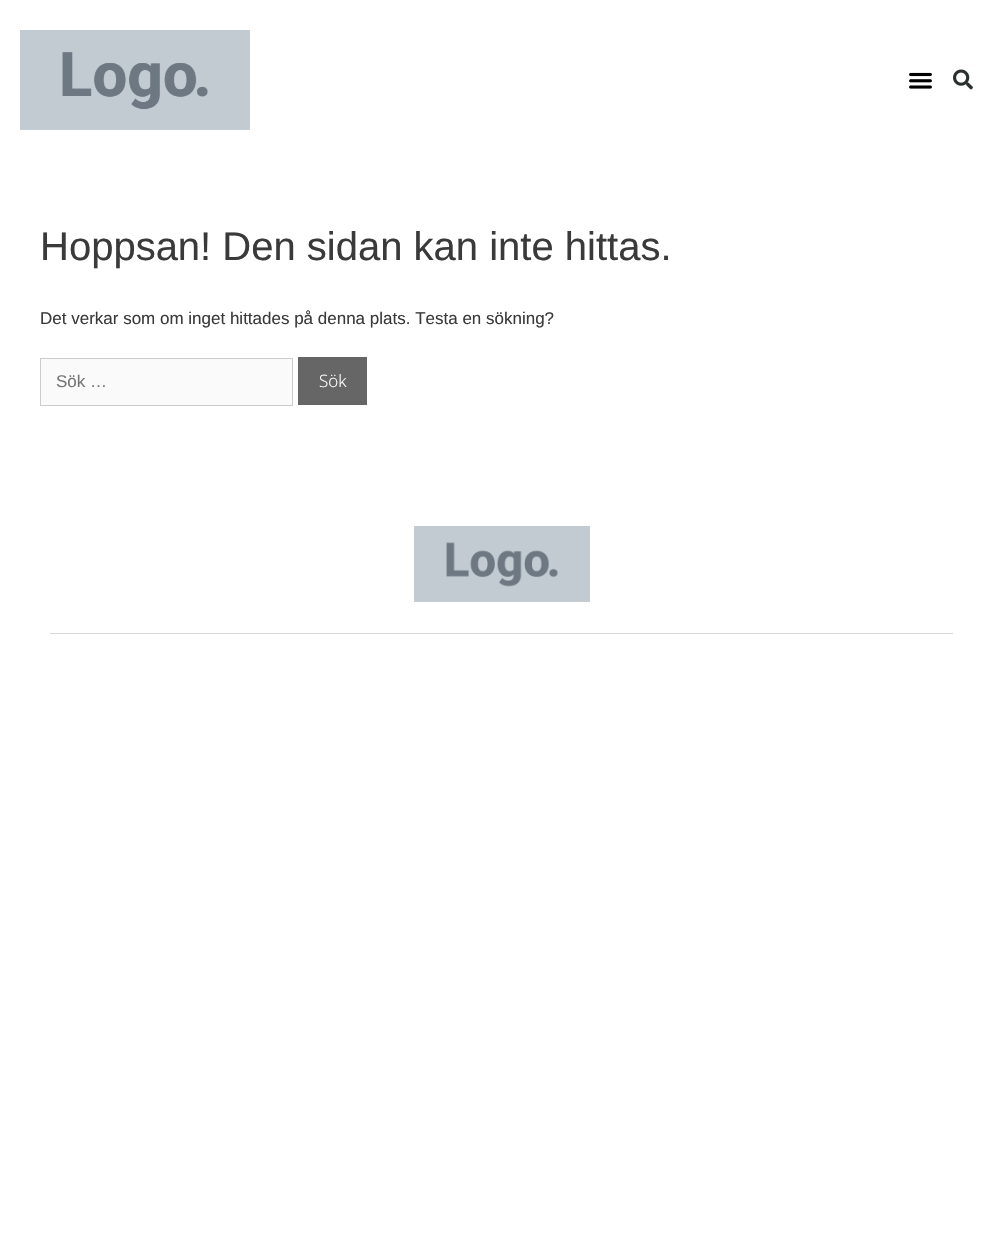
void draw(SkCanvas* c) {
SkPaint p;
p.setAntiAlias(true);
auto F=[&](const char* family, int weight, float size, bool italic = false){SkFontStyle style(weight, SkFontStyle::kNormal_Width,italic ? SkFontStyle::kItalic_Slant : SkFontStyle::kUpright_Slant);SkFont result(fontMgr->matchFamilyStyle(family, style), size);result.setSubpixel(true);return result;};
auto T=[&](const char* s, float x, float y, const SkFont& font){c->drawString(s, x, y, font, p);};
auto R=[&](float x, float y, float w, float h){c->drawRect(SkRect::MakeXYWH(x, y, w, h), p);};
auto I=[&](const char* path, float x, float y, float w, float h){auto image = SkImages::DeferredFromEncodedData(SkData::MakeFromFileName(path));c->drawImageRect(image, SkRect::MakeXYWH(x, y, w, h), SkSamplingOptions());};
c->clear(0xffffffff);
I("1.png",20,30,230,100);
I("2.png",909,72,23,17);
I("3.png",953,69,20,21);
auto f1 = F("Liberation Sans",400,40);
p.setColor(0xff3a3a3a);
T("Hoppsan! Den sidan kan inte hittas.",40,260,f1);
auto f2 = F("Liberation Sans",400,17);
T("Det verkar som om inget hittades på denna plats. Testa en sökning?",40,324,f2);
p.setColor(0xfffafafa);
c->drawRect(SkRect::MakeXYWH(40.5,358.5,252,47),p);
p.setStroke(true);
p.setStrokeWidth(1);
p.setColor(0xffcccccc);
c->drawRect(SkRect::MakeXYWH(40.5,358.5,252,47),p);
p.setStroke(false);
p.setColor(0xff757575);
T("Sök …",56,387,f2);
p.setColor(0xff666666);
R(298,357,69,48);
auto f3 = F("Open Sans",300,17);
p.setColor(0xffffffff);
T("Sök",319,387,f3);
I("4.png",414,526,176,76);
p.setColor(0xffd8d8d8);
R(50,633,903,1);
}
